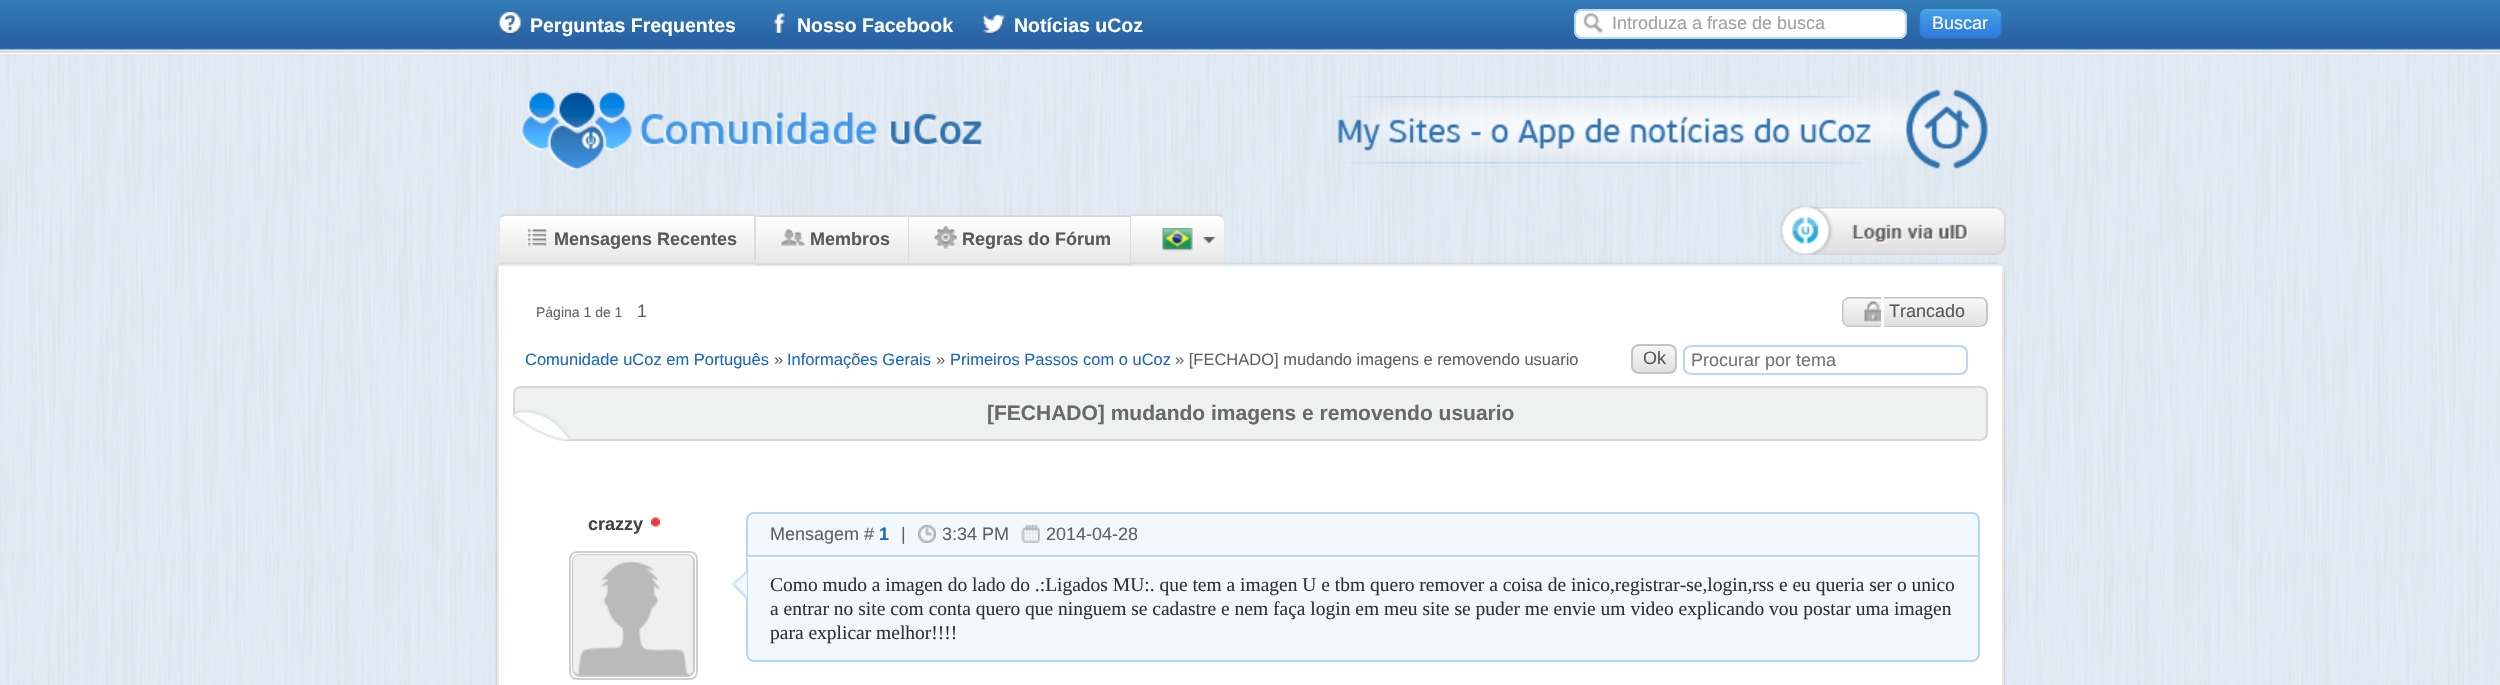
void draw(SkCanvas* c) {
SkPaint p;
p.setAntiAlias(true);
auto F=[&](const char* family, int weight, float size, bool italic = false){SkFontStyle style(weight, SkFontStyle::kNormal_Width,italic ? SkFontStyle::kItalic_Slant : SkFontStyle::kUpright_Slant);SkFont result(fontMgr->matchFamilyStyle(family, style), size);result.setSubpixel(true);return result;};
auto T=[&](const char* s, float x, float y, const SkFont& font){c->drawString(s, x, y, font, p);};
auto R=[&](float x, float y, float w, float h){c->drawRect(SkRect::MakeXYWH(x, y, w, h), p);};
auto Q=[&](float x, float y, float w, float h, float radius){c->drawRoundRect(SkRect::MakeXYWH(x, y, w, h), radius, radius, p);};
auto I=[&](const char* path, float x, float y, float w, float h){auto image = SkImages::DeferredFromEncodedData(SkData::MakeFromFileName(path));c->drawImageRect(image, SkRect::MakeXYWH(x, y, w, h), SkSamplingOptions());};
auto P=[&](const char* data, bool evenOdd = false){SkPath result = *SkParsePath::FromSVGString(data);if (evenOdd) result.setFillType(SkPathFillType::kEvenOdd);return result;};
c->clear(0xffffffff);
I("1.png",0,54,2500,631);
I("2.png",0,0,2500,54);
I("3.png",499,12,22,23);
auto f1 = F("Liberation Sans",700,19.5);
p.setColor(0xffffffff);
T("Perguntas Frequentes",530,32,f1);
I("4.png",773,13,12,22);
T("Nosso Facebook",797,32,f1);
I("5.png",982,14,24,21);
T("Notícias uCoz",1014,32,f1);
Q(1574,9,333,30,8);
I("6.png",1583,13,21,20);
p.setStroke(true);
p.setStrokeWidth(2);
p.setColor(0xffb6d8f6);
c->drawRoundRect(SkRect::MakeXYWH(1575,10,331,28),7,7,p);
auto f2 = F("Liberation Sans",400,18);
p.setStroke(false);
p.setColor(0xffa1a1a1);
T("Introduza a frase de busca",1612,29,f2);
I("7.png",1918,8,85,31);
p.setColor(0xffffffff);
T("Buscar",1932,29,f2);
I("8.png",520,91,462,79);
p.setColor(0x2e000000);
p.setMaskFilter(SkMaskFilter::MakeBlur(kNormal_SkBlurStyle, 1.5));
c->drawRoundRect(SkRect::MakeXYWH(497,264,1507,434),8,8,p);
p.setMaskFilter(nullptr);
c->save();
c->clipPath(P("M506 215h250v49h-258v-41c0-4.5 3.5-8 8-8z"),true);
{
const SkColor colors[] = {0xffffffff,0xffe7e7e7};
const float stops[] = {0,1};
const SkPoint ends[] = {{627,216}, {627,263}};
p.setShader(SkGradientShader::MakeLinear(ends, colors, stops, 2, SkTileMode::kClamp));
p.setAlpha(255);
}
R(498,216,257,47);
c->restore();
p.setShader(nullptr);
p.setColor(0xffdcdcdc);
c->drawPath(P("M506 216c-2 0-4 1-5 2l-1-1l3-3h253l-2 2z"),p);
c->drawPath(P("M756 214l-2 2v46l2 2z"),p);
c->drawPath(P("M756 264l-2-2h-254l-2 2z"),p);
p.setColor(0xffe7e7e7);
c->drawPath(P("M498 264l2-2v-40c0-1 0-3 1-4l-1-1c-1 1-2 3-2 5z"),p);
I("9.png",526,229,21,19);
auto f3 = F("Liberation Sans",700,18);
p.setColor(0xff595959);
T("Mensagens Recentes",554,245,f3);
{
const SkColor colors[] = {0xffffffff,0xffe7e7e7};
const float stops[] = {0,1};
const SkPoint ends[] = {{832,216}, {832,263}};
p.setShader(SkGradientShader::MakeLinear(ends, colors, stops, 2, SkTileMode::kClamp));
p.setAlpha(255);
}
R(756,217,152,46);
p.setShader(nullptr);
p.setColor(0xffdcdcdc);
R(756,215,375,2);
R(908,215,1,49);
p.setColor(0xffffffff);
c->drawRect(SkRect::MakeXYWH(498,265,1505,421),p);
p.setStroke(true);
p.setColor(0xffe7e7e7);
c->drawRect(SkRect::MakeXYWH(498,265,1505,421),p);
p.setStroke(false);
p.setColor(0xffdcdcdc);
R(756,263,153,2);
I("10.png",781,229,24,19);
p.setColor(0xff595959);
T("Membros",810,245,f3);
{
const SkColor colors[] = {0xffffffff,0xffe7e7e7};
const float stops[] = {0,1};
const SkPoint ends[] = {{1019,216}, {1019,263}};
p.setShader(SkGradientShader::MakeLinear(ends, colors, stops, 2, SkTileMode::kClamp));
p.setAlpha(255);
}
R(909,217,221,46);
p.setShader(nullptr);
p.setColor(0xffdcdcdc);
R(1130,215,1,49);
R(909,263,222,2);
I("11.png",934,226,23,25);
p.setColor(0xff595959);
T("Regras do Fórum",962,245,f3);
c->save();
c->clipPath(P("M1131 215h87c4.5 0 8 3.5 8 8v41h-95z"),true);
{
const SkColor colors[] = {0xffffffff,0xffe7e7e7};
const float stops[] = {0,1};
const SkPoint ends[] = {{1178,216}, {1178,263}};
p.setShader(SkGradientShader::MakeLinear(ends, colors, stops, 2, SkTileMode::kClamp));
p.setAlpha(255);
}
R(1131,216,94,47);
c->restore();
p.setShader(nullptr);
p.setColor(0xffdcdcdc);
c->drawPath(P("M1131 216h88l3 2l2-2l-3-2h-90z"),p);
p.setColor(0xffe7e7e7);
c->drawPath(P("M1224 262v-40c0-2-1-3-2-4l2-2l2 3v45z"),p);
p.setColor(0xffdcdcdc);
c->drawPath(P("M1226 264l-2-2h-93v2z"),p);
I("12.png",1162,228,31,23);
I("13.png",1203,237,13,8);
I("14.png",1337,89,655,80);
I("15.png",1780,205,226,50);
auto f4 = F("Liberation Sans",400,14);
p.setColor(0xff616161);
T("Página 1 de 1",536,317,f4);
T("1",637,317,f2);
c->save();
c->clipPath(P("M1850 297h31v30h-31c-4.5 0-8-3.5-8-8v-14c0-4.5 3.5-8 8-8z"),true);
{
const SkColor colors[] = {0xfff8f8f8,0xffe0e0e0};
const float stops[] = {0,1};
const SkPoint ends[] = {{1862,272}, {1862,299}};
p.setShader(SkGradientShader::MakeLinear(ends, colors, stops, 2, SkTileMode::kClamp));
p.setAlpha(255);
}
R(1842,297,39,2);
{
const SkColor colors[] = {0xfff8f8f8,0xffe0e0e0};
const float stops[] = {0,1};
const SkPoint ends[] = {{1862,299}, {1862,326}};
p.setShader(SkGradientShader::MakeLinear(ends, colors, stops, 2, SkTileMode::kClamp));
p.setAlpha(255);
}
R(1842,299,39,27);
c->restore();
p.setShader(nullptr);
p.setColor(0xffc4c4c4);
c->drawPath(P("M1849.5 297h31.5v30h-31.5c-4 0-7.5-3.5-7.5-7.5v-15c0-4 3.5-7.5 7.5-7.5zm0 1.5h31.5v27h-31.5c-3.5 0-6-2.5-6-6v-15c0-3.5 2.5-6 6-6z",true),p);
c->save();
c->clipPath(P("M1884 297h96c4.5 0 8 3.5 8 8v14c0 4.5-3.5 8-8 8h-96z"),true);
{
const SkColor colors[] = {0xfff8f8f8,0xffe0e0e0};
const float stops[] = {0,1};
const SkPoint ends[] = {{1935,272}, {1935,299}};
p.setShader(SkGradientShader::MakeLinear(ends, colors, stops, 2, SkTileMode::kClamp));
p.setAlpha(255);
}
R(1884,297,104,2);
{
const SkColor colors[] = {0xfff8f8f8,0xffe0e0e0};
const float stops[] = {0,1};
const SkPoint ends[] = {{1935,299}, {1935,326}};
p.setShader(SkGradientShader::MakeLinear(ends, colors, stops, 2, SkTileMode::kClamp));
p.setAlpha(255);
}
R(1884,299,104,27);
c->restore();
p.setShader(nullptr);
p.setColor(0xffc4c4c4);
c->drawPath(P("M1884 297h96c4 0 8 3 8 7v16c0 4-4 7-8 7h-96zm0 1h96c3 0 6 3 6 6v16c0 3-3 6-6 6h-96z",true),p);
I("16.png",1864,301,17,21);
p.setColor(0xff595959);
T("Trancado",1889,317,f2);
auto f5 = F("Liberation Sans",400,16.5);
p.setColor(0xff1e68c4);
T("Comunidade uCoz em Português",525,365,f5);
p.setColor(0xff616161);
T("»",774,365,f5);
p.setColor(0xff1e68c4);
T("Informações Gerais",787,365,f5);
p.setColor(0xff616161);
T("»",936,365,f5);
p.setColor(0xff1e68c4);
T("Primeiros Passos com o uCoz",950,365,f5);
p.setColor(0xff616161);
T("» [FECHADO] mudando imagens e removendo usuario",1175,365,f5);
c->save();
c->clipPath(P("M1639 344h30c4.5 0 8 3.5 8 8v14c0 4.5-3.5 8-8 8h-30c-4.5 0-8-3.5-8-8v-14c0-4.5 3.5-8 8-8z"),true);
{
const SkColor colors[] = {0xfff8f8f8,0xffe0e0e0};
const float stops[] = {0,1};
const SkPoint ends[] = {{1654,345}, {1654,372}};
p.setShader(SkGradientShader::MakeLinear(ends, colors, stops, 2, SkTileMode::kClamp));
p.setAlpha(255);
}
R(1631,345,46,27);
c->restore();
p.setStroke(true);
p.setShader(nullptr);
p.setColor(0xffc4c4c4);
c->drawRoundRect(SkRect::MakeXYWH(1632,345,44,28),7,7,p);
p.setStroke(false);
p.setColor(0xff595959);
T("Ok",1643,364,f2);
p.setStroke(true);
p.setColor(0xffb6d8f6);
c->drawRoundRect(SkRect::MakeXYWH(1684,346,283,28),7,7,p);
p.setStroke(false);
p.setColor(0xff757575);
T("Procurar por tema",1691,366,f2);
p.setColor(0xffeff0f0);
c->drawRoundRect(SkRect::MakeXYWH(514,387,1473,53),7,7,p);
p.setStroke(true);
p.setColor(0xffd7d7d7);
c->drawRoundRect(SkRect::MakeXYWH(514,387,1473,53),7,7,p);
I("17.png",512,409,59,33);
auto f6 = F("Liberation Sans",700,21);
p.setStroke(false);
p.setColor(0xff696969);
T("[FECHADO] mudando imagens e removendo usuario",987,420,f6);
p.setColor(0xff404040);
T("crazzy",588,530,f3);
I("18.png",651,517,9,10);
p.setStroke(true);
p.setColor(0xffcfcfcf);
c->drawRoundRect(SkRect::MakeXYWH(570,552,127,127),7,7,p);
p.setColor(0xffc6c6c6);
c->drawRoundRect(SkRect::MakeXYWH(573,555,121,121),7,7,p);
I("19.png",573,555,120,120);
p.setStroke(false);
p.setColor(0xfff1f8fe);
c->drawRoundRect(SkRect::MakeXYWH(747,513,1232,148),7,7,p);
p.setStroke(true);
p.setColor(0xffb5d7f4);
c->drawRoundRect(SkRect::MakeXYWH(747,513,1232,148),7,7,p);
p.setStroke(false);
p.setColor(0xffb6d8f6);
R(747,555,1232,2);
p.setColor(0xff616161);
T("Mensagem #",770,540,f2);
p.setColor(0xff1e68c4);
T("1",879,540,f3);
p.setColor(0xff616161);
T("|",901,540,f2);
I("20.png",918,525,18,18);
T("3:34 PM",942,540,f2);
I("21.png",1021,525,19,18);
T("2014-04-28",1046,540,f2);
I("22.png",732,571,15,28);
p.setColor(0xffffffff);
R(747,557,1230,2);
auto f7 = F("Liberation Serif",400,19.5);
p.setColor(0xff333333);
T("Como mudo a imagen do lado do .:Ligados MU:. que tem a imagen U e tbm quero remover a coisa de inico,registrar-se,login,rss e eu queria ser o unico",770,591,f7);
T("a entrar no site com conta quero que ninguem se cadastre e nem faça login em meu site se puder me envie um video explicando vou postar uma imagen",770,615,f7);
T("para explicar melhor!!!!",770,639,f7);
}
